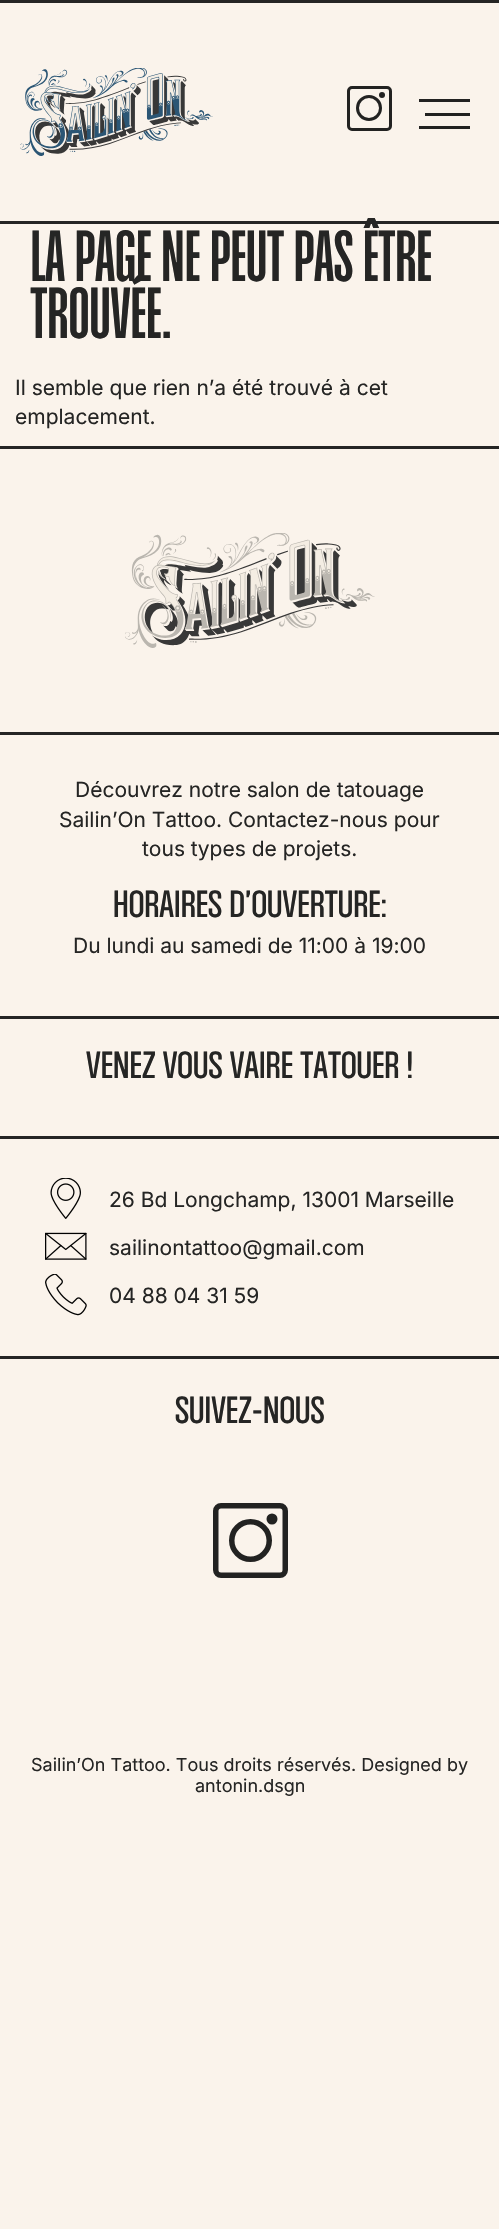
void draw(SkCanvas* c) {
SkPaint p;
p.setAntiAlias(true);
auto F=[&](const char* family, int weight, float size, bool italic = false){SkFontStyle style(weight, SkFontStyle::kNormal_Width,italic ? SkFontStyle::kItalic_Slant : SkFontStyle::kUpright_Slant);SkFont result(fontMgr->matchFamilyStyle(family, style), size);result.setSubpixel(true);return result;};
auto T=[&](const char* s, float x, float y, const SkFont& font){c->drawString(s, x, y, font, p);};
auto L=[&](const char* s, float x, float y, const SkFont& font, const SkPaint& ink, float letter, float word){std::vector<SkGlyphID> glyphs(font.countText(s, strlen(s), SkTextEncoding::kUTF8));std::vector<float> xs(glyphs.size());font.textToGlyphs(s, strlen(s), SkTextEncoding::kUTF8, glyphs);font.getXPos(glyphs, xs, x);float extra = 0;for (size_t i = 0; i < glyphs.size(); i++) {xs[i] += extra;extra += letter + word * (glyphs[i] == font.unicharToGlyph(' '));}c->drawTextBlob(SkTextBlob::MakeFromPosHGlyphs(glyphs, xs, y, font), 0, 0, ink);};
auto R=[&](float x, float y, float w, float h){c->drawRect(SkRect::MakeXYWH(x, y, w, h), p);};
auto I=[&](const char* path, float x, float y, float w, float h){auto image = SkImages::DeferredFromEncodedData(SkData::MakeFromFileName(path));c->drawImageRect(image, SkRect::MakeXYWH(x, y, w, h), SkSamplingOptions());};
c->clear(0xfffaf3eb);
p.setColor(0xff252524);
R(0,0,499,3);
R(0,221,499,3);
I("1.png",20,68,193,88);
p.setStroke(true);
p.setStrokeWidth(3);
p.setColor(0xff222221);
c->drawRoundRect(SkRect::MakeXYWH(348.5,87.5,42,42),3.5,3.5,p);
c->drawCircle(369,108,11.5,p);
p.setStroke(false);
c->drawCircle(382,95,3,p);
R(419,99,51,3);
R(425,113,45,3);
R(419,126,51,3);
auto f1 = F("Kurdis",600,63);
p.setColor(0xff252524);
L("LA PAGE NE PEUT PAS ÊTRE",30,281,f1,p,-.9,0);
L("TROUVÉE.",30,338,f1,p,-.9,0);
auto f2 = F("Inter",400,21);
T("Il semble que rien n’a été trouvé à cet",15,395,f2);
T("emplacement.",15,424,f2);
R(0,446,499,3);
I("2.png",125,533,250,115);
R(0,732,499,3);
T("Découvrez notre salon de tatouage",75,797,f2);
T("Sailin’On Tattoo. Contactez-nous pour",59,827,f2);
T("tous types de projets.",142,856,f2);
auto f3 = F("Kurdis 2",600,33);
T("HORAIRES D’OUVERTURE:",113,917,f3);
T("Du lundi au samedi de 11:00 à 19:00",73,953,f2);
R(0,1016,499,3);
T("VENEZ VOUS VAIRE TATOUER !",86,1078,f3);
R(0,1136,499,3);
I("3.png",50,1178,31,41);
T("26 Bd Longchamp, 13001 Marseille",109,1207,f2);
I("4.png",45,1232,42,28);
T("sailinontattoo@gmail.com",109,1255,f2);
I("5.png",45,1274,42,42);
T("04 88 04 31 59",109,1303,f2);
R(0,1356,499,3);
T("SUIVEZ-NOUS",175,1423,f3);
p.setStroke(true);
p.setStrokeWidth(5.5);
p.setColor(0xff222221);
c->drawRoundRect(SkRect::MakeXYWH(215.75,1505.75,69.5,69.5),5.25,5.25,p);
c->drawCircle(250.5,1540.5,18.75,p);
p.setStroke(false);
c->drawCircle(272,1519,5.5,p);
auto f4 = F("Inter",400,18);
p.setColor(0xff252524);
T("Sailin’On Tattoo. Tous droits réservés. Designed by",31,1771,f4);
T("antonin.dsgn",195,1792,f4);
}
